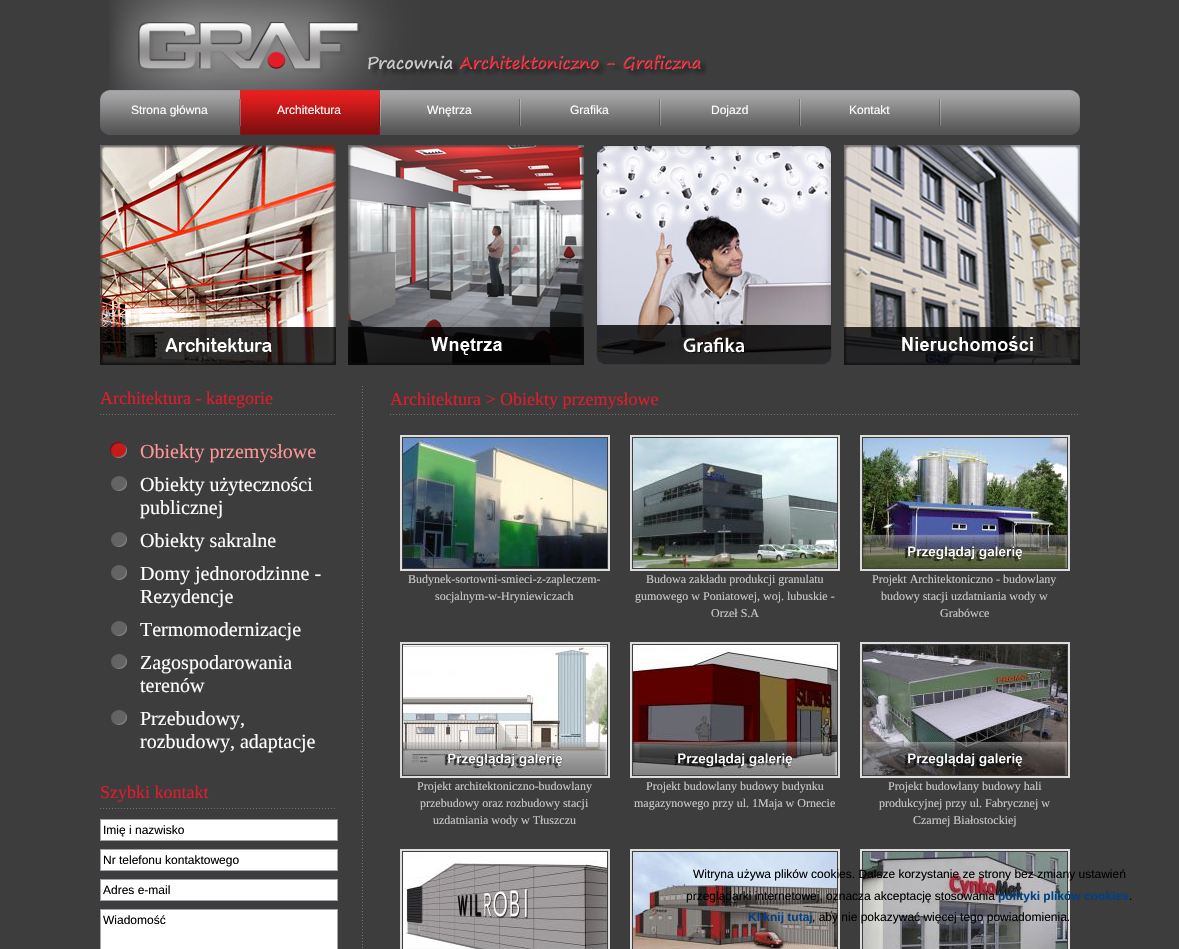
void draw(SkCanvas* c) {
SkPaint p;
p.setAntiAlias(true);
auto F=[&](const char* family, int weight, float size, bool italic = false){SkFontStyle style(weight, SkFontStyle::kNormal_Width,italic ? SkFontStyle::kItalic_Slant : SkFontStyle::kUpright_Slant);SkFont result(fontMgr->matchFamilyStyle(family, style), size);result.setSubpixel(true);return result;};
auto T=[&](const char* s, float x, float y, const SkFont& font){c->drawString(s, x, y, font, p);};
auto I=[&](const char* path, float x, float y, float w, float h){auto image = SkImages::DeferredFromEncodedData(SkData::MakeFromFileName(path));c->drawImageRect(image, SkRect::MakeXYWH(x, y, w, h), SkSamplingOptions());};
c->clear(0xff3d3d3d);
I("1.png",109,0,598,90);
I("2.png",100,90,980,45);
auto f1 = F("Liberation Sans",400,12);
p.setColor(0xfffefefe);
T("Strona główna",131,114,f1);
I("3.png",240,90,140,45);
T("Architektura",277,114,f1);
T("Wnętrza",427,114,f1);
T("Grafika",570,114,f1);
T("Dojazd",711,114,f1);
T("Kontakt",849,114,f1);
I("4.png",100,145,236,220);
I("5.png",348,145,236,220);
I("6.png",596,145,236,220);
I("7.png",844,145,236,220);
I("8.png",362,386,1,562);
auto f2 = F("Liberation Serif",400,18);
p.setColor(0xffe21c2a);
T("Architektura - kategorie",100,404,f2);
I("9.png",100,414,235,1);
I("10.png",110,442,17,16);
auto f3 = F("Liberation Serif",400,20);
p.setColor(0xffff9696);
T("Obiekty przemysłowe",140,458,f3);
I("11.png",111,476,16,15);
p.setColor(0xfffefefe);
T("Obiekty użyteczności",140,491,f3);
T("publicznej",140,514,f3);
I("11.png",111,532,16,15);
T("Obiekty sakralne",140,547,f3);
I("11.png",111,565,16,15);
T("Domy jednorodzinne -",140,580,f3);
T("Rezydencje",140,603,f3);
I("11.png",111,621,16,15);
T("Termomodernizacje",140,636,f3);
I("11.png",111,654,16,15);
T("Zagospodarowania",140,669,f3);
T("terenów",140,692,f3);
I("11.png",111,710,16,15);
T("Przebudowy,",140,725,f3);
T("rozbudowy, adaptacje",140,748,f3);
p.setColor(0xffe21c2a);
T("Szybki kontakt",100,798,f2);
I("9.png",100,808,235,1);
p.setColor(0xffffffff);
c->drawRect(SkRect::MakeXYWH(100.5,819.5,237,21),p);
p.setStroke(true);
p.setStrokeWidth(1);
p.setColor(0xffa2a5ab);
c->drawRect(SkRect::MakeXYWH(100.5,819.5,237,21),p);
p.setStroke(false);
p.setColor(0xff000000);
T("Imię i nazwisko",103,834,f1);
p.setColor(0xffffffff);
c->drawRect(SkRect::MakeXYWH(100.5,849.5,237,21),p);
p.setStroke(true);
p.setColor(0xffa2a5ab);
c->drawRect(SkRect::MakeXYWH(100.5,849.5,237,21),p);
p.setStroke(false);
p.setColor(0xff000000);
T("Nr telefonu kontaktowego",103,864,f1);
p.setColor(0xffffffff);
c->drawRect(SkRect::MakeXYWH(100.5,879.5,237,21),p);
p.setStroke(true);
p.setColor(0xffa2a5ab);
c->drawRect(SkRect::MakeXYWH(100.5,879.5,237,21),p);
p.setStroke(false);
p.setColor(0xff000000);
T("Adres e-mail",103,894,f1);
p.setColor(0xffffffff);
c->drawRect(SkRect::MakeXYWH(100.5,909.5,237,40),p);
p.setStroke(true);
p.setColor(0xffa2a5ab);
c->drawRect(SkRect::MakeXYWH(100.5,909.5,237,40),p);
p.setStroke(false);
p.setColor(0xff000000);
T("Wiadomość",103,924,f1);
p.setColor(0xffe21c2a);
T("Architektura > Obiekty przemysłowe",390,405,f2);
I("12.png",390,414,688,1);
p.setStroke(true);
p.setStrokeWidth(2);
p.setColor(0xffdddddd);
c->drawRect(SkRect::MakeXYWH(401,436,208,134),p);
I("13.png",403,438,204,130);
auto f4 = F("Liberation Serif",400,12);
p.setStroke(false);
p.setColor(0xffc9c9c9);
T("Budynek-sortowni-smieci-z-zapleczem-",408,583,f4);
T("socjalnym-w-Hryniewiczach",435,600,f4);
p.setStroke(true);
p.setColor(0xffdddddd);
c->drawRect(SkRect::MakeXYWH(631,436,208,134),p);
I("14.png",633,438,204,130);
p.setStroke(false);
p.setColor(0xffc9c9c9);
T("Budowa zakładu produkcji granulatu",646,583,f4);
T("gumowego w Poniatowej, woj. lubuskie -",635,600,f4);
T("Orzeł S.A",711,617,f4);
p.setStroke(true);
p.setColor(0xffdddddd);
c->drawRect(SkRect::MakeXYWH(861,436,208,134),p);
I("15.png",863,438,204,130);
p.setStroke(false);
p.setColor(0xffc9c9c9);
T("Projekt Architektoniczno - budowlany",872,583,f4);
T("budowy stacji uzdatniania wody w",881,600,f4);
T("Grabówce",940,617,f4);
p.setStroke(true);
p.setColor(0xffdddddd);
c->drawRect(SkRect::MakeXYWH(401,643,208,134),p);
I("16.png",403,645,204,130);
p.setStroke(false);
p.setColor(0xffc9c9c9);
T("Projekt architektoniczno-budowlany",417,790,f4);
T("przebudowy oraz rozbudowy stacji",420,807,f4);
T("uzdatniania wody w Tłuszczu",433,824,f4);
p.setStroke(true);
p.setColor(0xffdddddd);
c->drawRect(SkRect::MakeXYWH(631,643,208,134),p);
I("17.png",633,645,204,130);
p.setStroke(false);
p.setColor(0xffc9c9c9);
T("Projekt budowlany budowy budynku",646,790,f4);
T("magazynowego przy ul. 1Maja w Ornecie",634,807,f4);
p.setStroke(true);
p.setColor(0xffdddddd);
c->drawRect(SkRect::MakeXYWH(861,643,208,134),p);
I("18.png",863,645,204,130);
p.setStroke(false);
p.setColor(0xffc9c9c9);
T("Projekt budowlany budowy hali",888,790,f4);
T("produkcyjnej przy ul. Fabrycznej w",879,807,f4);
T("Czarnej Białostockiej",913,824,f4);
p.setStroke(true);
p.setColor(0xffdddddd);
c->drawRect(SkRect::MakeXYWH(401,850,208,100),p);
I("19.png",403,852,204,97);
c->drawRect(SkRect::MakeXYWH(631,850,208,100),p);
I("20.png",633,852,204,97);
c->drawRect(SkRect::MakeXYWH(861,850,208,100),p);
I("21.png",863,852,204,97);
p.setStroke(false);
p.setColor(0xff000000);
T("Witryna używa plików cookies. Dalsze korzystanie ze strony bez zmiany ustawień",693,878,f1);
T("przeglądarki internetowej, oznacza akceptację stosowania",686,900,f1);
auto f5 = F("Liberation Sans",700,12);
p.setColor(0xff004080);
T("polityki plików cookies",998,900,f5);
p.setColor(0xff000000);
T(".",1129,900,f1);
p.setColor(0xff004080);
T("Kliknij tutaj",748,921,f5);
p.setColor(0xff000000);
T(", aby nie pokazywać więcej tego powiadomienia.",812,921,f1);
}
